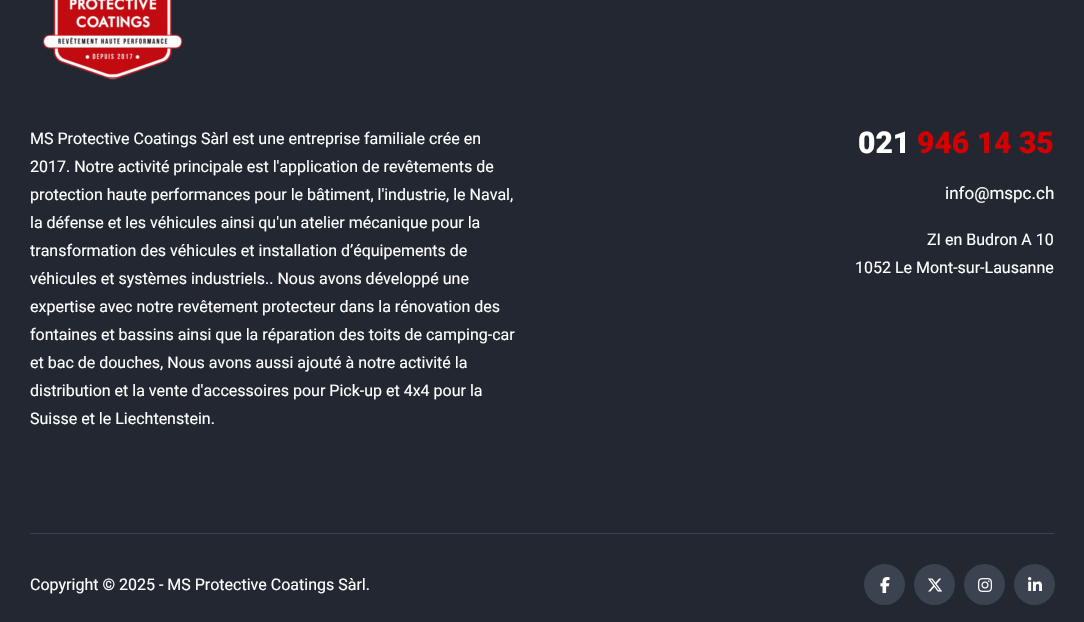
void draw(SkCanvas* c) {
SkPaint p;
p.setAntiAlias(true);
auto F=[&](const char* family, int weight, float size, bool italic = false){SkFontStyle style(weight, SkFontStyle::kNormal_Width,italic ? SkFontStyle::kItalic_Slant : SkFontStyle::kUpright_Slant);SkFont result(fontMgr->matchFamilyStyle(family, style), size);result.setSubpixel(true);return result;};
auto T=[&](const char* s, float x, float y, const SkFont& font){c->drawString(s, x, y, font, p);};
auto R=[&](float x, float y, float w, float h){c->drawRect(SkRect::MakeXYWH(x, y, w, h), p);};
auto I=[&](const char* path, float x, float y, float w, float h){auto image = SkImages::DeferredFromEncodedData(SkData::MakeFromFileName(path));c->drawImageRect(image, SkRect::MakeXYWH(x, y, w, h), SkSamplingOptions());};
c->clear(0xff222732);
I("1.png",42,0,141,80);
auto f1 = F("Roboto",400,16);
p.setColor(0xffffffff);
T("MS Protective Coatings Sàrl est une entreprise familiale crée en",30,144,f1);
T("2017. Notre activité principale est l'application de revêtements de",30,172,f1);
T("protection haute performances pour le bâtiment, l'industrie, le Naval,",30,200,f1);
T("la défense et les véhicules ainsi qu'un atelier mécanique pour la",30,228,f1);
T("transformation des véhicules et installation d’équipements de",30,256,f1);
T("véhicules et systèmes industriels.. Nous avons développé une",30,284,f1);
T("expertise avec notre revêtement protecteur dans la rénovation des",30,312,f1);
T("fontaines et bassins ainsi que la réparation des toits de camping-car",30,340,f1);
T("et bac de douches, Nous avons aussi ajouté à notre activité la",30,368,f1);
T("distribution et la vente d'accessoires pour Pick-up et 4x4 pour la",30,396,f1);
T("Suisse et le Liechtenstein.",30,424,f1);
auto f2 = F("Roboto",900,30);
T("021",858,153,f2);
p.setColor(0xffd40000);
T("946 14 35",917,153,f2);
auto f3 = F("Roboto",400,17);
p.setColor(0xffffffff);
T("info@mspc.ch",945,199,f3);
T("ZI en Budron A 10",927,245,f1);
T("1052 Le Mont-sur-Lausanne",855,273,f1);
p.setColor(0xff3b4250);
R(30,533,1024,1);
p.setColor(0xffffffff);
T("Copyright © 2025 - MS Protective Coatings Sàrl.",30,590,f1);
p.setColor(0xff3b4250);
c->drawCircle(884.5,584.5,20.5,p);
I("2.png",880,577,10,16);
c->drawCircle(934.5,584.5,20.5,p);
I("3.png",928,578,15,14);
c->drawCircle(984.5,584.5,20.5,p);
I("4.png",978,578,14,14);
c->drawCircle(1034.5,584.5,20.5,p);
I("5.png",1028,577,14,14);
}
